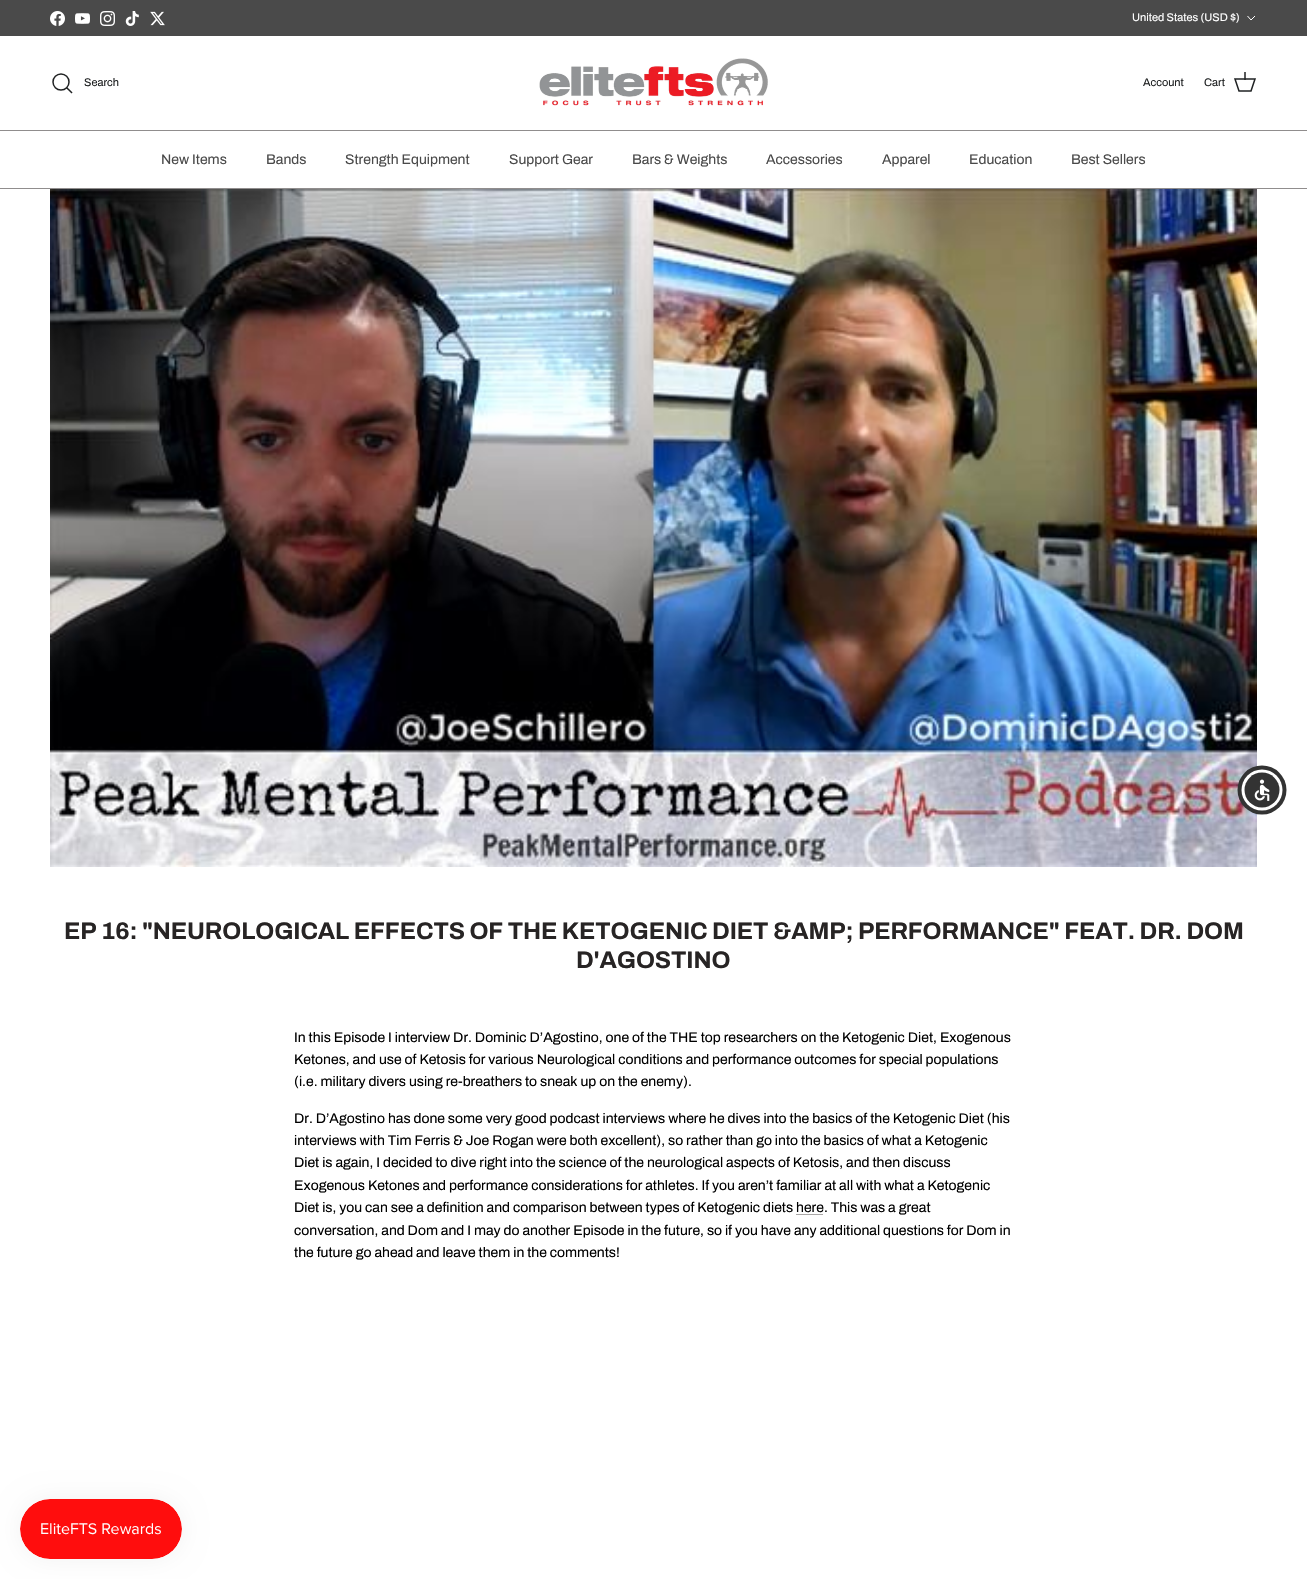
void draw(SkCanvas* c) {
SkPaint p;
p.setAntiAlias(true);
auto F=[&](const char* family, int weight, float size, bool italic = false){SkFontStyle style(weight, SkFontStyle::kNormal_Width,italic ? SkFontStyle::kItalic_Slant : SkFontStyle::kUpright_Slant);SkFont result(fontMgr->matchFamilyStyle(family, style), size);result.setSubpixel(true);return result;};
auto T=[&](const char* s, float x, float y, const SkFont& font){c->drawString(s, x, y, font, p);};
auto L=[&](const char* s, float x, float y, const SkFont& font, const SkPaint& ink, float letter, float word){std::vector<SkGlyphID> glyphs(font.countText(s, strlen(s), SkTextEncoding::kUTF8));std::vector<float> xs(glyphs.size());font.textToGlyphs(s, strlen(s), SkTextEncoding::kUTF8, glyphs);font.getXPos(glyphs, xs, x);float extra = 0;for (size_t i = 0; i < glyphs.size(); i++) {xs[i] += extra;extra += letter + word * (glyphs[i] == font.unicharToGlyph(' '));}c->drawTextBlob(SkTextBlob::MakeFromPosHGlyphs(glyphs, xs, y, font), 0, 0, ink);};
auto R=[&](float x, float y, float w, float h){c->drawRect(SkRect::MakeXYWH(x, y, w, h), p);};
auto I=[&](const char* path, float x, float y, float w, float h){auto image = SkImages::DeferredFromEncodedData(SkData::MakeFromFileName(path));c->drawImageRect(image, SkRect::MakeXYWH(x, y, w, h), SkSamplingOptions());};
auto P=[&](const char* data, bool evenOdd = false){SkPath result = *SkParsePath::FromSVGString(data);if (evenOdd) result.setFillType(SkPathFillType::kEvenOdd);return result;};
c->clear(0xffffffff);
p.setColor(0xff4a4a4a);
R(0,0,1307,36);
I("1.png",50,11,15,15);
I("2.png",75,13,15,11);
I("3.png",100,11,15,15);
I("4.png",125,11,14,15);
I("5.png",150,11,15,15);
auto f1 = F("Archivo",400,11);
p.setColor(0xffffffff);
T("United States (USD $)",1132,21,f1);
p.setStroke(true);
p.setStrokeWidth(1);
c->drawPath(P("M1255 16l-4 4l-3.5-4"),p);
p.setStroke(false);
p.setColor(0xff908d8d);
R(0,130,1307,1);
p.setStroke(true);
p.setStrokeWidth(1.5);
p.setColor(0xff202223);
c->drawCircle(61,82,8,p);
p.setStroke(false);
T("Search",84,86,f1);
p.setStroke(true);
p.setStrokeCap(SkPaint::kSquare_Cap);
c->drawPath(P("M67 88l4.5 4.5"),p);
I("6.png",539,58,229,48);
p.setStroke(false);
T("Account",1143,86,f1);
T("Cart",1204,86,f1);
p.setStroke(true);
p.setStrokeCap(SkPaint::kButt_Cap);
c->drawPath(P("M1235 79h20l-4 12h-12z"),p);
p.setStroke(false);
p.setColor(0xbf202223);
R(1244,72,2,8);
p.setColor(0xff908d8d);
R(0,188,1307,1);
auto f2 = F("Archivo",400,14);
p.setColor(0xff4a4a4a);
T("New Items",161,164,f2);
T("Bands",266,164,f2);
T("Strength Equipment",345,164,f2);
T("Support Gear",509,164,f2);
T("Bars & Weights",632,164,f2);
T("Accessories",766,164,f2);
T("Apparel",882,164,f2);
T("Education",969,164,f2);
T("Best Sellers",1071,164,f2);
I("8.png",50,189,1207,678);
p.setColor(0xff333333);
c->drawCircle(1262,790,24.5,p);
p.setColor(0xffffffff);
c->drawCircle(1262,790,20.5,p);
p.setColor(0xff333333);
c->drawCircle(1262,790,17.5,p);
I("7.png",1254,779,16,22);
auto f3 = F("Archivo",700,24);
p.setColor(0xff272424);
L("EP 16: \"NEUROLOGICAL EFFECTS OF THE KETOGENIC DIET &AMP; PERFORMANCE\" FEAT. DR. DOM",64,939,f3,p,-.12,0);
L("D'AGOSTINO",576,968,f3,p,-.12,0);
p.setColor(0xff000000);
T("In this Episode I interview Dr. Dominic D’Agostino, one of the THE top researchers on the Ketogenic Diet, Exogenous",294,1042,f2);
T("Ketones, and use of Ketosis for various Neurological conditions and performance outcomes for special populations",294,1064,f2);
T("(i.e. military divers using re-breathers to sneak up on the enemy).",294,1086,f2);
T("Dr. D’Agostino has done some very good podcast interviews where he dives into the basics of the Ketogenic Diet (his",294,1123,f2);
T("interviews with Tim Ferris & Joe Rogan were both excellent), so rather than go into the basics of what a Ketogenic",294,1145,f2);
T("Diet is again, I decided to dive right into the science of the neurological aspects of Ketosis, and then discuss",294,1167,f2);
T("Exogenous Ketones and performance considerations for athletes. If you aren’t familiar at all with what a Ketogenic",294,1190,f2);
T("Diet is, you can see a definition and comparison between types of Ketogenic diets here. This was a great",294,1212,f2);
p.setColor(0xffa9a7a7);
R(796,1214,27,1);
p.setColor(0xff000000);
T("conversation, and Dom and I may do another Episode in the future, so if you have any additional questions for Dom in",294,1235,f2);
T("the future go ahead and leave them in the comments!",294,1257,f2);
p.setColor(0x0d000000);
p.setMaskFilter(SkMaskFilter::MakeBlur(kNormal_SkBlurStyle, 12.5));
c->drawRoundRect(SkRect::MakeXYWH(20,1499,162,60),30,30,p);
p.setMaskFilter(nullptr);
I("9.png",20,1499,162,60);
}
